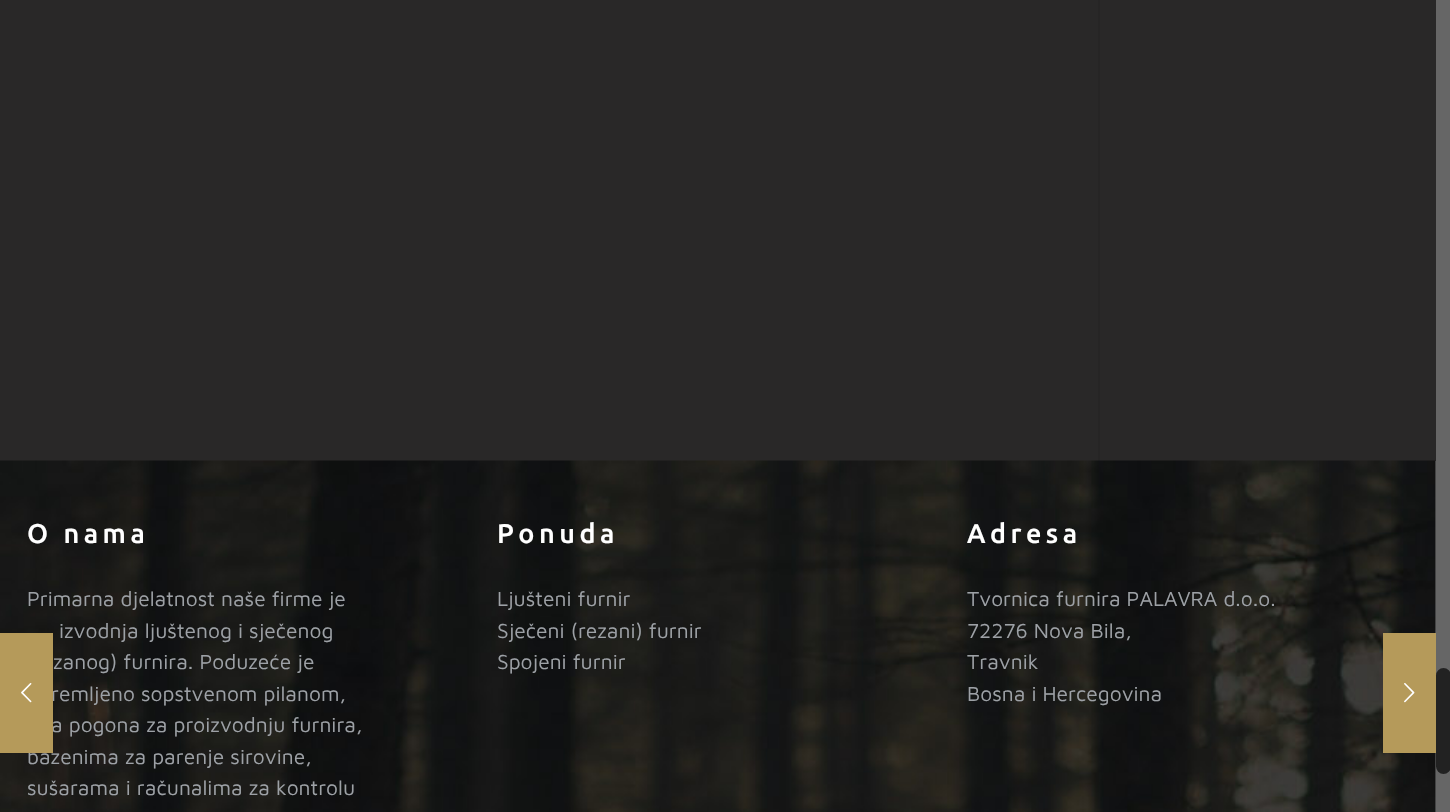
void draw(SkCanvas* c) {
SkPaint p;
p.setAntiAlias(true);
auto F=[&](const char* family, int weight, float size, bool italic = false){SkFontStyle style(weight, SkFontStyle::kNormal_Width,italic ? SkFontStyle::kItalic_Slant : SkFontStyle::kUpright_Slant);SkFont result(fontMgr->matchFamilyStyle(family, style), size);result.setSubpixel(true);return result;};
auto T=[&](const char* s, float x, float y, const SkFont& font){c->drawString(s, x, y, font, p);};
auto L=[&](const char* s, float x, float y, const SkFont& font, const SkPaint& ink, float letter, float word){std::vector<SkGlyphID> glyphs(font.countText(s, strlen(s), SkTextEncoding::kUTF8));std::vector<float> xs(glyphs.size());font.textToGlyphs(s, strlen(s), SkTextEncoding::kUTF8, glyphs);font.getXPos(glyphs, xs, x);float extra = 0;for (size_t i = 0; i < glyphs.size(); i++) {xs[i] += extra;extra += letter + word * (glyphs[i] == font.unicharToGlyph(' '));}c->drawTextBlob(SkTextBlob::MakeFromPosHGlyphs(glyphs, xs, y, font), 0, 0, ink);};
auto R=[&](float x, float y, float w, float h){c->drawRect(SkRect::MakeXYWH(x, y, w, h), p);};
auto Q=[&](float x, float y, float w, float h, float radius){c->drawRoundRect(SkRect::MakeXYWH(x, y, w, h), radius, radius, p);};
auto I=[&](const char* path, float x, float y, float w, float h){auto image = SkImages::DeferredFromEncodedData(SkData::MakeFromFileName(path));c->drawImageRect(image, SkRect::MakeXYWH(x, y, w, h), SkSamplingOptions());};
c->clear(0xff292828);
p.setColor(0xff262525);
R(1098,0,2,461);
p.setColor(0xff545454);
R(1435,461,1,351);
I("2.png",0,460,1436,352);
auto f1 = F("Maven Pro",400,21);
p.setColor(0xff9da1a6);
T("remljeno sopstvenom pilanom,",51,701,f1);
T("a pogona za proizvodnju furnira,",51,732,f1);
T("bazenima za parenje sirovine,",27,764,f1);
p.setColor(0xffb59a5a);
R(0,633,53,120);
I("1.png",21,683,11,20);
auto f2 = F("Ubuntu",500,27);
p.setColor(0xffffffff);
L("O nama",27,543,f2,p,4.5,0);
p.setColor(0xff9da1a6);
T("Primarna djelatnost naše firme je",27,606,f1);
T("izvodnja ljuštenog i sječenog",59,638,f1);
T("zanog) furnira. Poduzeće je",53,669,f1);
T("sušarama i računalima za kontrolu",27,795,f1);
p.setColor(0xffffffff);
L("Ponuda",497,543,f2,p,4.5,0);
p.setColor(0xff9da1a6);
T("Ljušteni furnir",497,606,f1);
T("Sječeni (rezani) furnir",497,638,f1);
T("Spojeni furnir",497,669,f1);
p.setColor(0xffffffff);
L("Adresa",967,543,f2,p,4.5,0);
p.setColor(0xff9da1a6);
T("Tvornica furnira PALAVRA d.o.o.",967,606,f1);
T("72276 Nova Bila,",967,638,f1);
T("Travnik",967,669,f1);
T("Bosna i Hercegovina",967,701,f1);
p.setColor(0xffb59a5a);
R(1383,633,53,120);
I("3.png",1404,683,11,20);
p.setColor(0xff666666);
R(1436,0,14,812);
p.setColor(0xff222222);
Q(1436,668,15,106,7.5);
}
